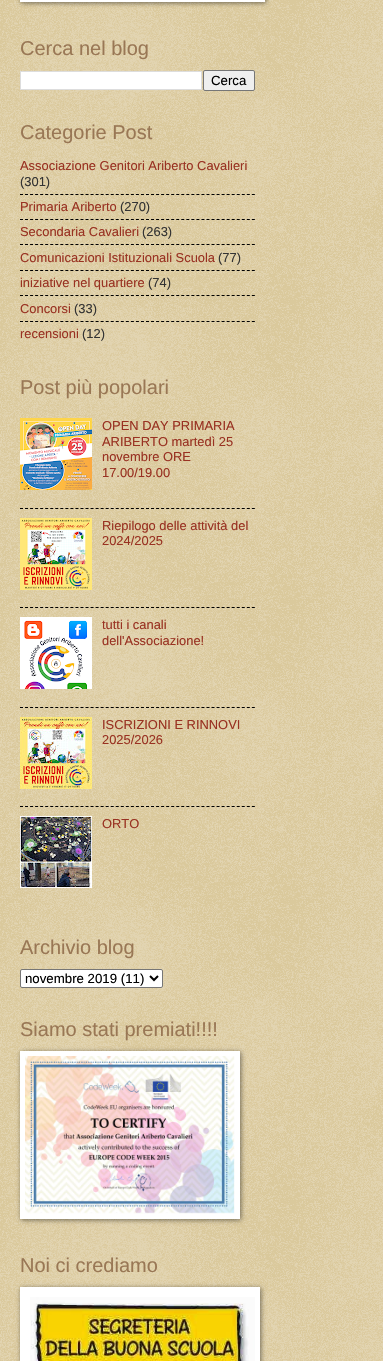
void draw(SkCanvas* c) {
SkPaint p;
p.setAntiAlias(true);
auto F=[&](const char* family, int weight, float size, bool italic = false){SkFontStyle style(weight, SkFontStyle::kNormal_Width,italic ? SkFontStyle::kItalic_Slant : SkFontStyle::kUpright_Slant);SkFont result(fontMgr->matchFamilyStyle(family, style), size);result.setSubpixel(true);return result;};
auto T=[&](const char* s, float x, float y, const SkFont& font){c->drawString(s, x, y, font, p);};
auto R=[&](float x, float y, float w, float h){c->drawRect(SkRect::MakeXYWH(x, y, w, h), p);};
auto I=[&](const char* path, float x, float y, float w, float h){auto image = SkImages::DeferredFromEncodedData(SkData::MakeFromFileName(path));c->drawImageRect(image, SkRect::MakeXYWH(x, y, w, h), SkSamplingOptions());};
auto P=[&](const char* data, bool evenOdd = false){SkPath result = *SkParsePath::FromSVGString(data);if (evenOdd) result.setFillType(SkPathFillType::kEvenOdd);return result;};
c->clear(0xffc0a154);
I("1.png",0,0,383,1361);
p.setColor(0x80000000);
p.setMaskFilter(SkMaskFilter::MakeBlur(kNormal_SkBlurStyle, 2.5));
c->drawRect(SkRect::MakeXYWH(21,-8,245,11),p);
p.setMaskFilter(nullptr);
p.setColor(0xffffffff);
R(20,0,245,2);
auto f1 = F("Liberation Sans",400,20);
p.setColor(0xff997755);
T("Cerca nel blog",20,55,f1);
p.setColor(0xffffffff);
c->drawRect(SkRect::MakeXYWH(20.5,71.5,181,18),p);
p.setStroke(true);
p.setStrokeWidth(1);
p.setColor(0xffdddddd);
c->drawRect(SkRect::MakeXYWH(20.5,71.5,181,18),p);
p.setStroke(false);
p.setColor(0xffefefef);
c->drawRoundRect(SkRect::MakeXYWH(203.5,70.5,51,20),1.5,1.5,p);
p.setStroke(true);
p.setColor(0xff767676);
c->drawRoundRect(SkRect::MakeXYWH(203.5,70.5,51,20),1.5,1.5,p);
auto f2 = F("Liberation Sans",400,13.25);
p.setStroke(false);
p.setColor(0xff000000);
T("Cerca",211,85,f2);
p.setColor(0xff997755);
T("Categorie Post",20,139,f1);
auto f3 = F("Liberation Sans",400,12.9);
p.setColor(0xff993222);
T("Associazione Genitori Ariberto Cavalieri",20,170,f3);
p.setColor(0xff333333);
T("(301)",20,186,f3);
p.setStroke(true);
p.setColor(0xff000000);
p.setPathEffect(SkDashPathEffect::Make({{3,2.04f}}, 0));
c->drawPath(P("M20 194.5h235"),p);
p.setPathEffect(nullptr);
p.setStroke(false);
p.setColor(0xff993222);
T("Primaria Ariberto",20,211,f3);
p.setColor(0xff333333);
T("(270)",120,211,f3);
p.setStroke(true);
p.setColor(0xff000000);
p.setPathEffect(SkDashPathEffect::Make({{3,2.04f}}, 0));
c->drawPath(P("M20 219.5h235"),p);
p.setPathEffect(nullptr);
p.setStroke(false);
p.setColor(0xff993222);
T("Secondaria Cavalieri",20,236,f3);
p.setColor(0xff333333);
T("(263)",142,236,f3);
p.setStroke(true);
p.setColor(0xff000000);
p.setPathEffect(SkDashPathEffect::Make({{3,2.04f}}, 0));
c->drawPath(P("M20 244.5h235"),p);
p.setPathEffect(nullptr);
p.setStroke(false);
p.setColor(0xff993222);
T("Comunicazioni Istituzionali Scuola",20,262,f3);
p.setColor(0xff333333);
T("(77)",218,262,f3);
p.setStroke(true);
p.setColor(0xff000000);
p.setPathEffect(SkDashPathEffect::Make({{3,2.04f}}, 0));
c->drawPath(P("M20 270.5h235"),p);
p.setPathEffect(nullptr);
p.setStroke(false);
p.setColor(0xff993222);
T("iniziative nel quartiere",20,287,f3);
p.setColor(0xff333333);
T("(74)",148,287,f3);
p.setStroke(true);
p.setColor(0xff000000);
p.setPathEffect(SkDashPathEffect::Make({{3,2.04f}}, 0));
c->drawPath(P("M20 295.5h235"),p);
p.setPathEffect(nullptr);
p.setStroke(false);
p.setColor(0xff993222);
T("Concorsi",20,313,f3);
p.setColor(0xff333333);
T("(33)",74,313,f3);
p.setStroke(true);
p.setColor(0xff000000);
p.setPathEffect(SkDashPathEffect::Make({{3,2.04f}}, 0));
c->drawPath(P("M20 321.5h235"),p);
p.setPathEffect(nullptr);
p.setStroke(false);
p.setColor(0xff993222);
T("recensioni",20,338,f3);
p.setColor(0xff333333);
T("(12)",82,338,f3);
p.setColor(0xff997755);
T("Post più popolari",20,394,f1);
I("2.png",20,418,72,72);
p.setColor(0xff993222);
T("OPEN DAY PRIMARIA",102,430,f3);
T("ARIBERTO martedì 25",102,446,f3);
T("novembre ORE",102,461,f3);
T("17.00/19.00",102,477,f3);
p.setStroke(true);
p.setColor(0xff000000);
p.setPathEffect(SkDashPathEffect::Make({{3,2.04f}}, 0));
c->drawPath(P("M20 508.5h235"),p);
p.setPathEffect(nullptr);
I("3.png",20,518,72,72);
p.setStroke(false);
p.setColor(0xff993222);
T("Riepilogo delle attività del",102,530,f3);
T("2024/2025",102,545,f3);
p.setStroke(true);
p.setColor(0xff000000);
p.setPathEffect(SkDashPathEffect::Make({{3,2.04f}}, 0));
c->drawPath(P("M20 607.5h235"),p);
p.setPathEffect(nullptr);
I("4.png",20,617,72,72);
p.setStroke(false);
p.setColor(0xff993222);
T("tutti i canali",102,629,f3);
T("dell'Associazione!",102,645,f3);
p.setStroke(true);
p.setColor(0xff000000);
p.setPathEffect(SkDashPathEffect::Make({{3,2.04f}}, 0));
c->drawPath(P("M20 707.5h235"),p);
p.setPathEffect(nullptr);
I("5.png",20,717,72,72);
p.setStroke(false);
p.setColor(0xff993222);
T("ISCRIZIONI E RINNOVI",102,729,f3);
T("2025/2026",102,744,f3);
p.setStroke(true);
p.setColor(0xff000000);
p.setPathEffect(SkDashPathEffect::Make({{3,2.04f}}, 0));
c->drawPath(P("M20 806.5h235"),p);
p.setPathEffect(nullptr);
I("6.png",20,816,72,72);
p.setStroke(false);
p.setColor(0xff993222);
T("ORTO",102,828,f3);
p.setColor(0xff997755);
T("Archivio blog",20,954,f1);
p.setColor(0xffffffff);
c->drawRoundRect(SkRect::MakeXYWH(20.5,969.5,142,18),1.5,1.5,p);
p.setStroke(true);
p.setColor(0xff767676);
c->drawRoundRect(SkRect::MakeXYWH(20.5,969.5,142,18),1.5,1.5,p);
p.setStrokeWidth(2);
p.setColor(0xff000000);
c->drawPath(P("M150 976l4 4l4-4"),p);
p.setStroke(false);
T("novembre 2019 (11)",25,983,f2);
p.setColor(0xff997755);
T("Siamo stati premiati!!!!",20,1036,f1);
p.setColor(0x80000000);
p.setMaskFilter(SkMaskFilter::MakeBlur(kNormal_SkBlurStyle, 2.5));
c->drawRect(SkRect::MakeXYWH(21,1052,220,168),p);
p.setMaskFilter(nullptr);
p.setColor(0xffffffff);
R(20,1051,220,168);
I("7.png",25,1056,210,158);
p.setColor(0xff997755);
T("Noi ci crediamo",20,1272,f1);
p.setColor(0x80000000);
p.setMaskFilter(SkMaskFilter::MakeBlur(kNormal_SkBlurStyle, 2.5));
c->drawRect(SkRect::MakeXYWH(21,1288,240,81),p);
p.setMaskFilter(nullptr);
p.setColor(0xffffffff);
R(20,1287,240,74);
I("8.png",30,1297,225,64);
}
